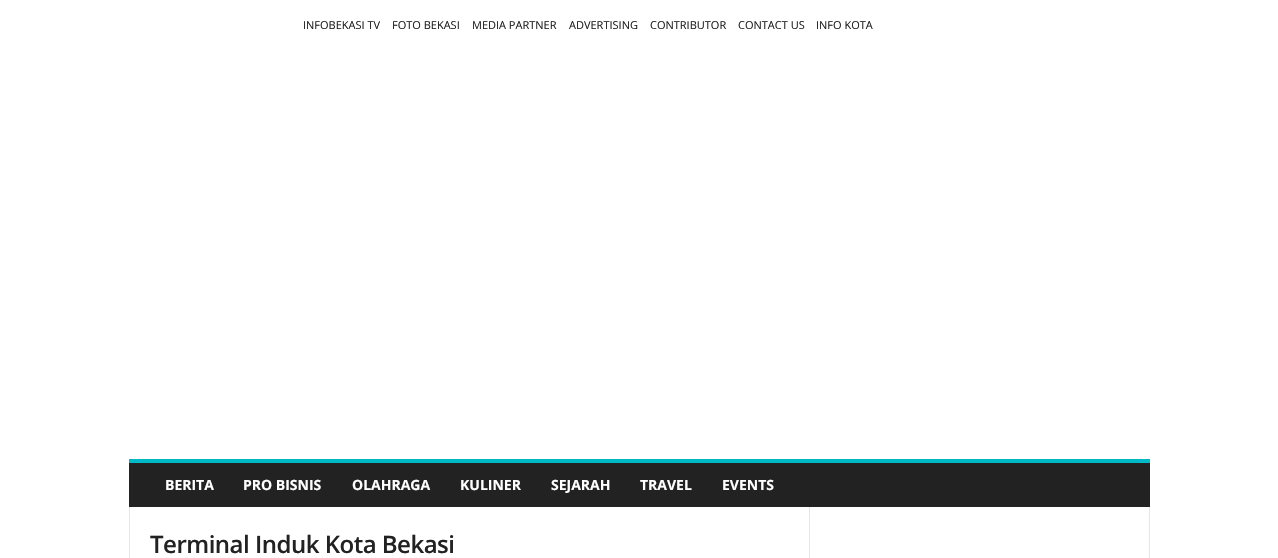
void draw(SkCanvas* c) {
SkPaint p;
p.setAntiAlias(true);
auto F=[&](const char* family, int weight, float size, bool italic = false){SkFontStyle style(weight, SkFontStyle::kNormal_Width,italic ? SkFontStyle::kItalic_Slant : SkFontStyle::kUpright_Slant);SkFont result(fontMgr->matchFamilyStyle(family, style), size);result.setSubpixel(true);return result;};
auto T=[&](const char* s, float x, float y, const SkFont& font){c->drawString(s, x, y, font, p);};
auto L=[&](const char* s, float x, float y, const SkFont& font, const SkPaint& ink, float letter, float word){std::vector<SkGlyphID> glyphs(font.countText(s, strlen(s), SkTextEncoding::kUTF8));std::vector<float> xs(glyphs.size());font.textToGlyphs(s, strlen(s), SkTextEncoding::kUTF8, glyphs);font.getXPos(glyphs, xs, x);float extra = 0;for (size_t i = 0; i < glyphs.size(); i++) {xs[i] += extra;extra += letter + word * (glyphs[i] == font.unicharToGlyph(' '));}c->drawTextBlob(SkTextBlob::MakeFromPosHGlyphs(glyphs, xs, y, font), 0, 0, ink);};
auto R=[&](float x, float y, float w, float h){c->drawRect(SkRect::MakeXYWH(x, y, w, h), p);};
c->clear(0xffffffff);
auto f1 = F("Open Sans",400,11);
p.setColor(0xff222222);
T("INFOBEKASI TV",303,29,f1);
T("FOTO BEKASI",392,29,f1);
T("MEDIA PARTNER",472,29,f1);
T("ADVERTISING",569,29,f1);
T("CONTRIBUTOR",650,29,f1);
T("CONTACT US",738,29,f1);
T("INFO KOTA",816,29,f1);
R(129,463,1021,44);
p.setColor(0xff00b9c6);
R(129,459,1021,4);
auto f2 = F("Open Sans",700,14);
p.setColor(0xffffffff);
T("BERITA",165,490,f2);
T("PRO BISNIS",243,490,f2);
T("OLAHRAGA",352,490,f2);
T("KULINER",460,490,f2);
T("SEJARAH",551,490,f2);
T("TRAVEL",640,490,f2);
T("EVENTS",722,490,f2);
p.setColor(0xffe6e6e6);
R(129,507,1,51);
auto f3 = F("Open Sans",600,24);
p.setColor(0xff222222);
L("Terminal Induk Kota Bekasi",150,553,f3,p,-.5,0);
p.setColor(0xffe6e6e6);
R(809,507,1,51);
R(1149,507,1,51);
}
